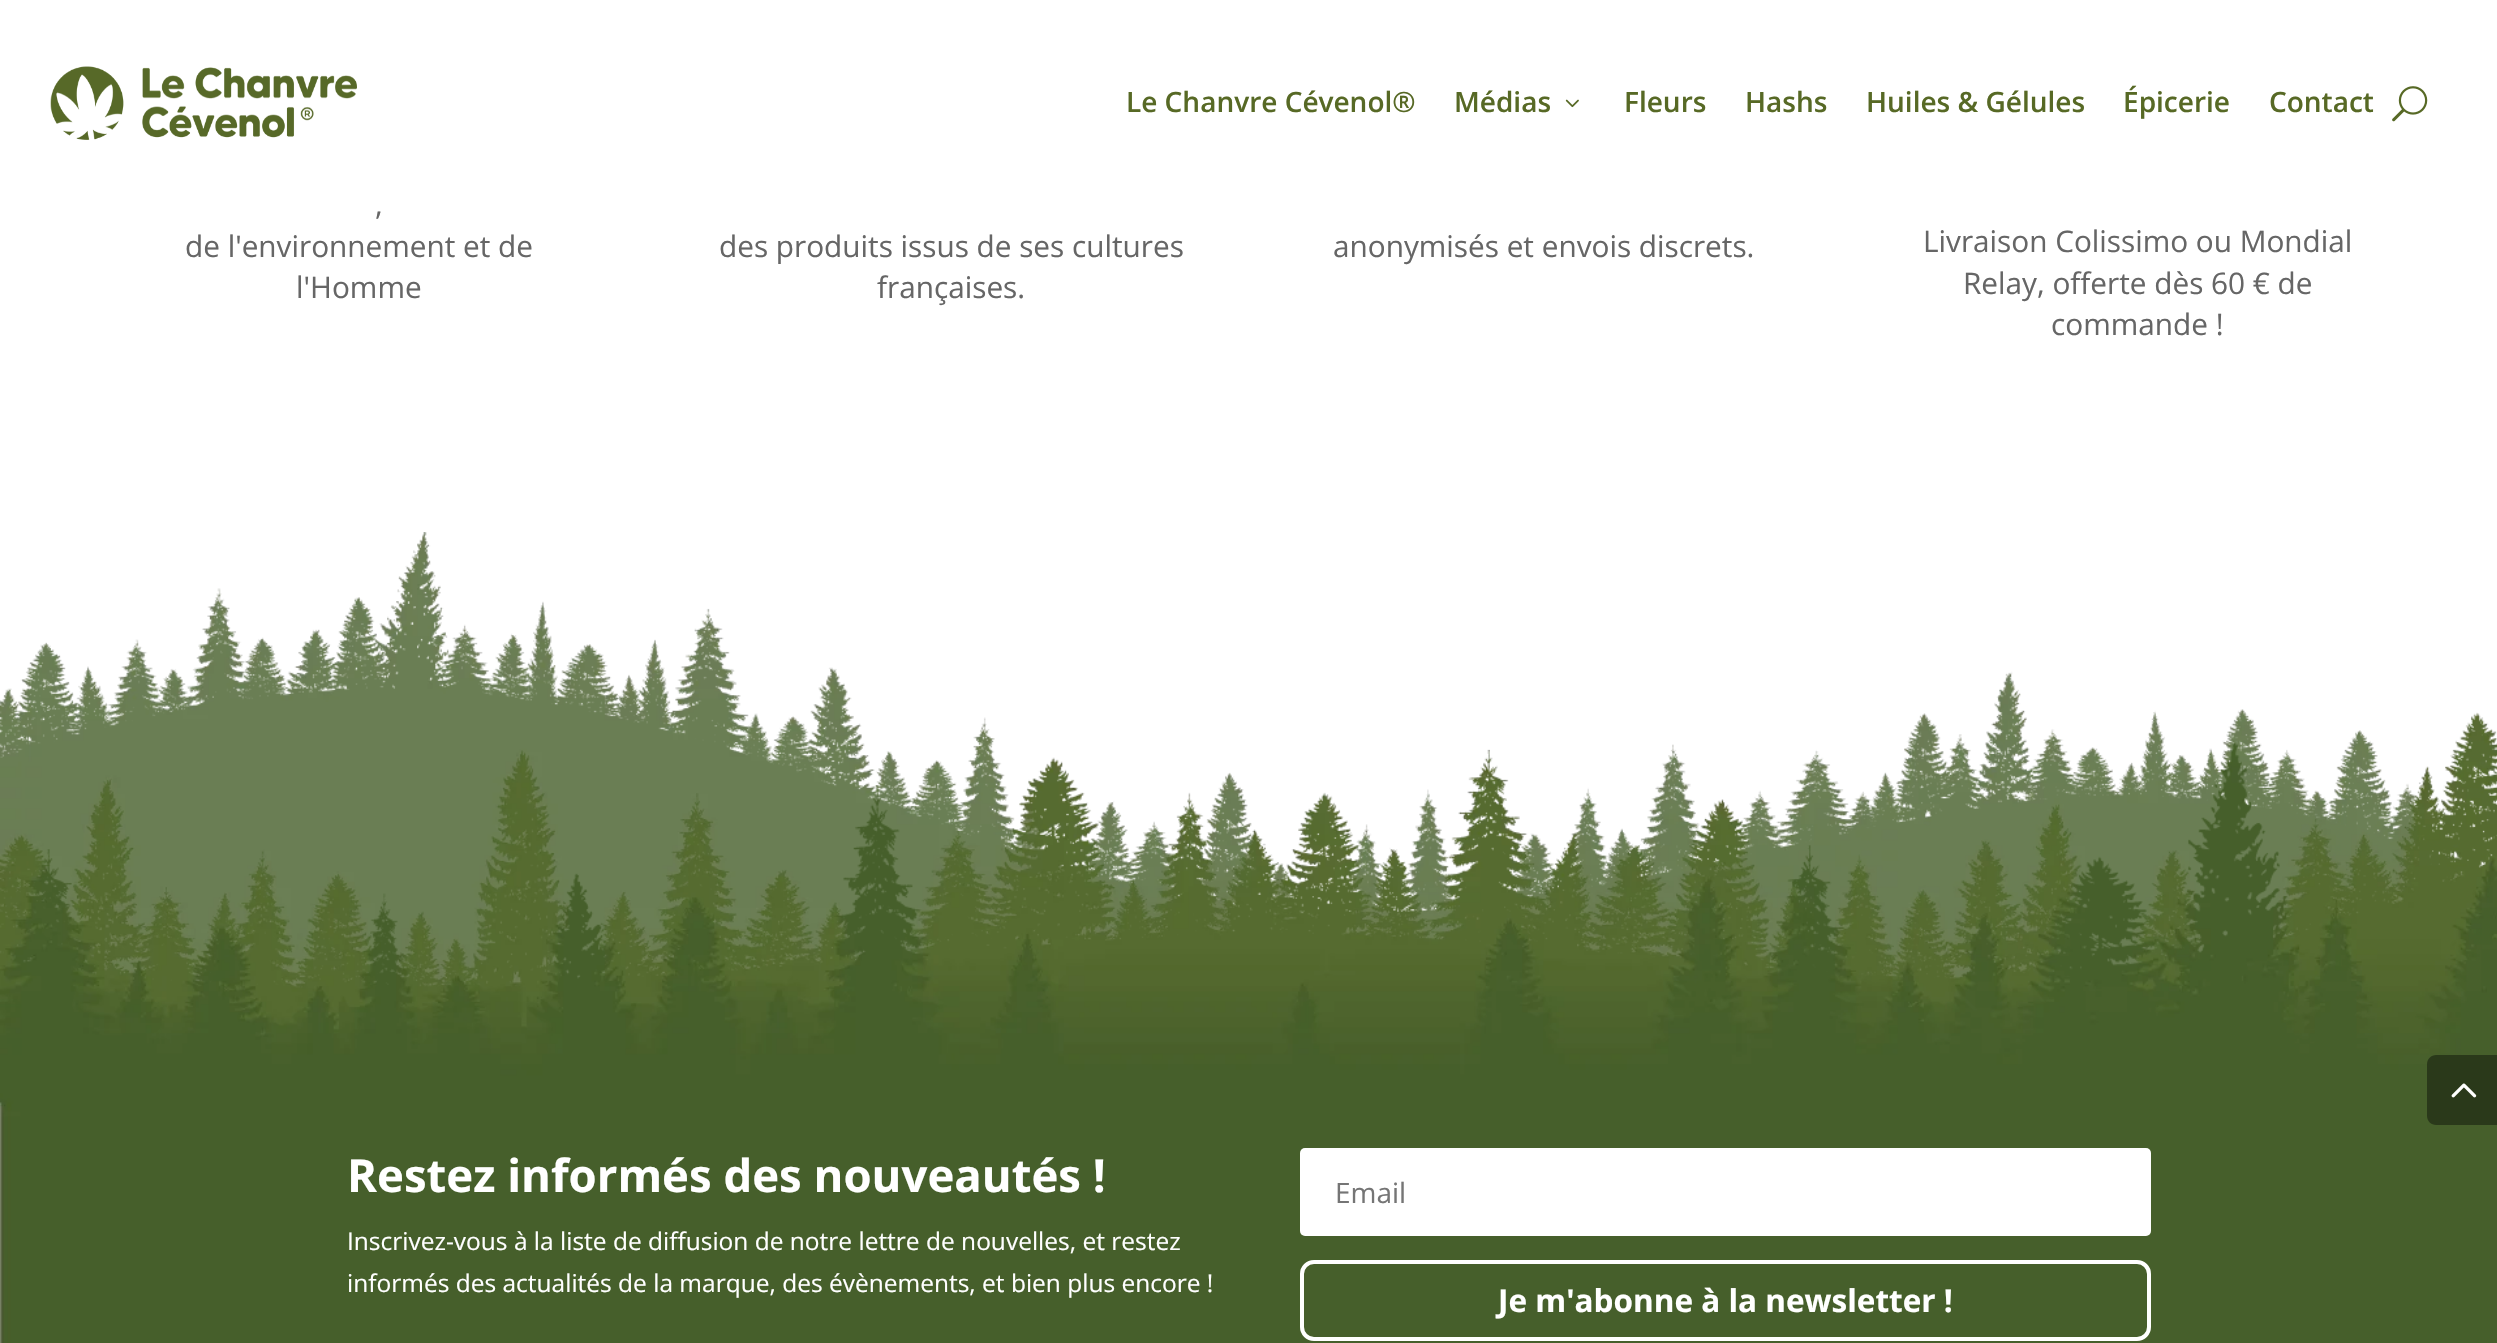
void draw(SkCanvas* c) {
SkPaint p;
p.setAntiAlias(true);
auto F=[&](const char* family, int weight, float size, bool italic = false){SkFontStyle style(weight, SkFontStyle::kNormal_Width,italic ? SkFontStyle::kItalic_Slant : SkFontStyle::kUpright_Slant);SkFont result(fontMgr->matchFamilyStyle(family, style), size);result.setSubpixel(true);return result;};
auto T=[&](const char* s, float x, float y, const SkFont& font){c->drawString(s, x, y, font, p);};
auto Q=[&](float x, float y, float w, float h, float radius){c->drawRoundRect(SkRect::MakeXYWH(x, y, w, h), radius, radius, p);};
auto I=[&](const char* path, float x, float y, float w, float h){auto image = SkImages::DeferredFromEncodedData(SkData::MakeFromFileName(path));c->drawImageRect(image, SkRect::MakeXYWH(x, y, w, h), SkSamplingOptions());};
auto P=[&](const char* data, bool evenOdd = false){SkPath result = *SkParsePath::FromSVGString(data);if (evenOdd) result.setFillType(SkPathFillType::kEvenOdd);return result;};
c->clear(0xffffffff);
I("1.png",50,66,307,74);
auto f1 = F("Open Sans",600,28);
p.setColor(0xff576925);
T("Le Chanvre Cévenol®",1126,112,f1);
T("Médias",1454,112,f1);
I("2.png",1565,99,14,9);
T("Fleurs",1624,112,f1);
T("Hashs",1745,112,f1);
T("Huiles & Gélules",1866,112,f1);
T("Épicerie",2123,112,f1);
T("Contact",2269,112,f1);
I("3.png",2392,86,36,36);
auto f2 = F("Open Sans",400,29.75);
p.setColor(0xff666666);
T(",",375,215,f2);
T("de l'environnement et de",185,257,f2);
T("l'Homme",296,298,f2);
T("des produits issus de ses cultures",719,257,f2);
T("françaises.",877,298,f2);
T("anonymisés et envois discrets.",1333,257,f2);
T("Livraison Colissimo ou Mondial",1923,252,f2);
T("Relay, offerte dès 60 € de",1963,294,f2);
T("commande !",2051,335,f2);
I("4.png",0,532,2497,811);
auto f3 = F("Open Sans",700,45.5);
p.setColor(0xffffffff);
T("Restez informés des nouveautés !",347,1192,f3);
auto f4 = F("Open Sans",400,24.5);
T("Inscrivez-vous à la liste de diffusion de notre lettre de nouvelles, et restez",347,1250,f4);
T("informés des actualités de la marque, des évènements, et bien plus encore !",347,1292,f4);
Q(1300,1148,851,88,5);
auto f5 = F("Open Sans",400,28);
p.setColor(0xff757575);
T("Email",1335,1203,f5);
p.setStroke(true);
p.setStrokeWidth(4);
p.setColor(0xffffffff);
c->drawRoundRect(SkRect::MakeXYWH(1302,1262,847,77),12,12,p);
auto f6 = F("Open Sans",700,31.5);
p.setStroke(false);
T("Je m'abonne à la newsletter !",1498,1312,f6);
p.setColor(0xff2a391a);
c->drawPath(P("M2436 1055h61v70h-61c-5 0-9-4-9-9v-52c0-5 4-9 9-9z"),p);
I("5.png",2451,1083,26,15);
}
